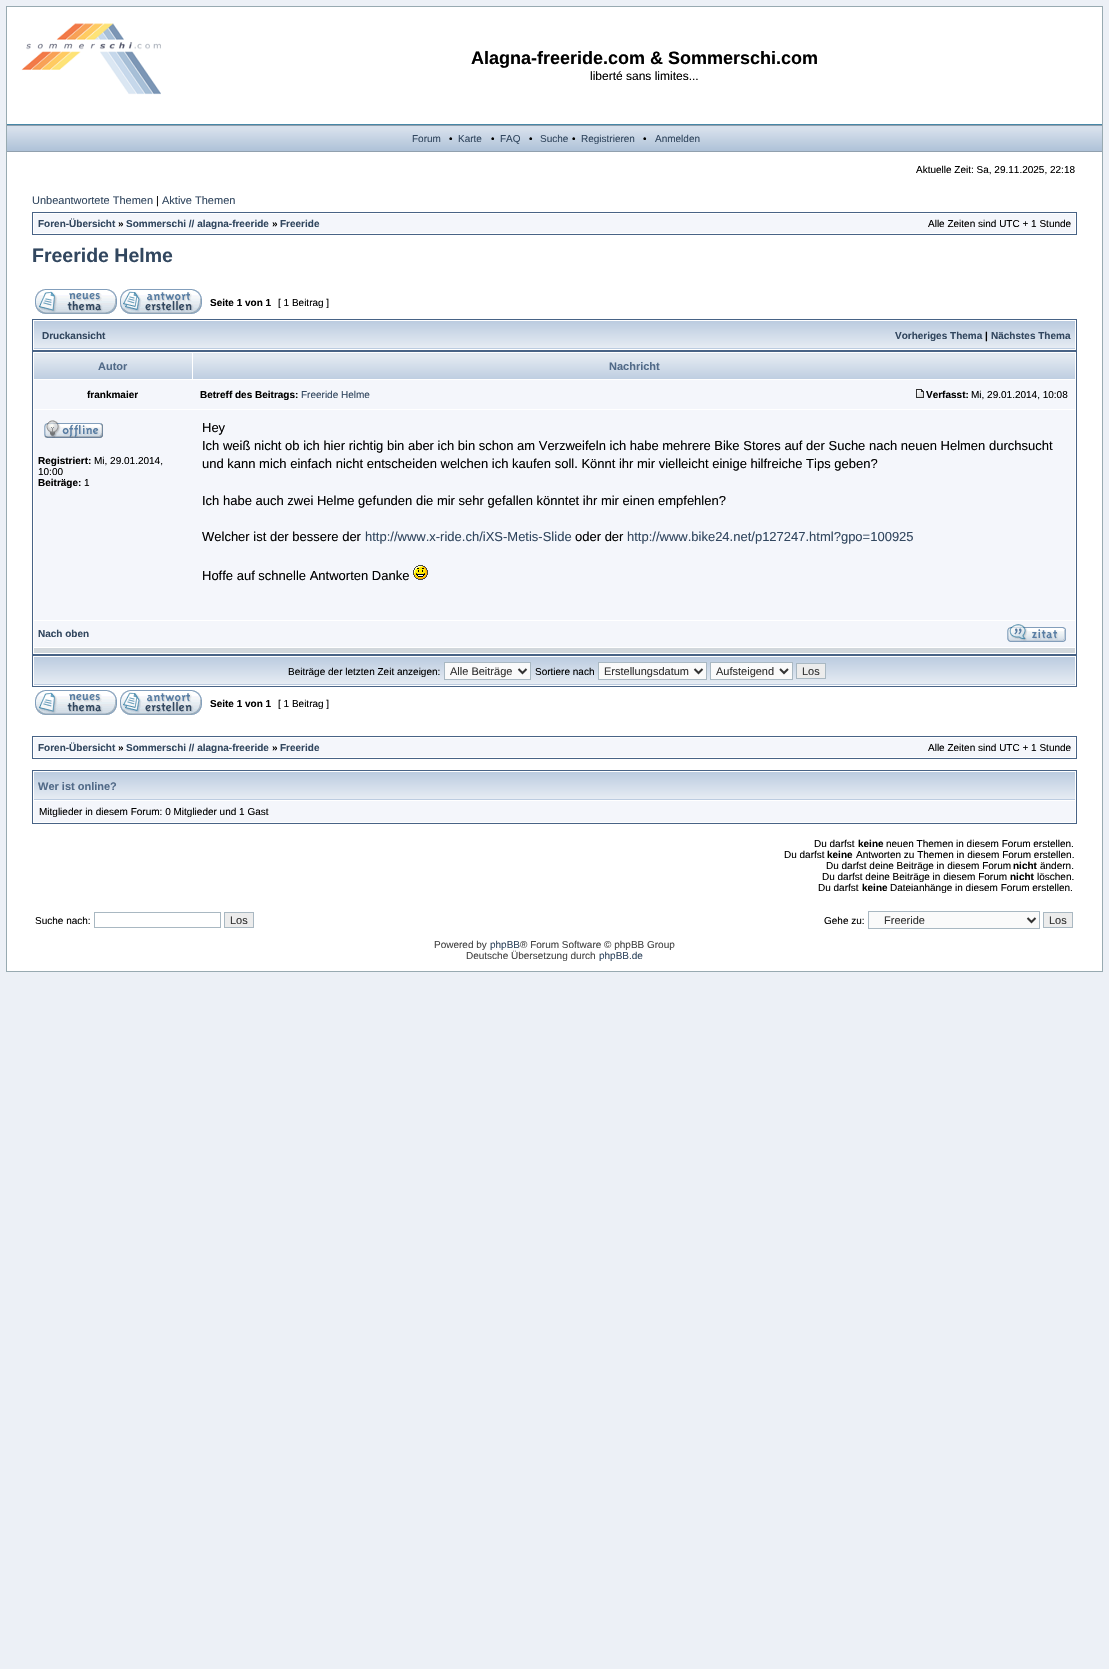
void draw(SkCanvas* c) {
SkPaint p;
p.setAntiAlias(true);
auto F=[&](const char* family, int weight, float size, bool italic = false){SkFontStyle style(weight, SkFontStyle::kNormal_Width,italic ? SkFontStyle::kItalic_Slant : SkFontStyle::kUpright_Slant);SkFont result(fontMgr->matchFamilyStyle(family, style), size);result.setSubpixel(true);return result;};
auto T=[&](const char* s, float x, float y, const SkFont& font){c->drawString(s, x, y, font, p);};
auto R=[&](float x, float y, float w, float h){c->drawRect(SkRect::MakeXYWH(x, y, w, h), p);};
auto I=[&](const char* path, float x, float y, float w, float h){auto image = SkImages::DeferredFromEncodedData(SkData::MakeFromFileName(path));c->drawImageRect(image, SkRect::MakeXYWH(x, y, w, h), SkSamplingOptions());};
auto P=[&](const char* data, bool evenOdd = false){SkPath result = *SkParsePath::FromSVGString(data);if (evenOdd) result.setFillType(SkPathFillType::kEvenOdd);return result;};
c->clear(0xffecf0f6);
p.setColor(0xffffffff);
R(7,152,1095,819);
p.setStroke(true);
p.setStrokeWidth(1);
p.setColor(0xff98aab1);
c->drawRect(SkRect::MakeXYWH(6.5,6.5,1096,965),p);
p.setStroke(false);
p.setColor(0xff4787a7);
R(7,124,1095,1);
p.setColor(0xffffffff);
R(7,7,1095,117);
I("1.png",21,23,140,72);
auto f1 = F("Liberation Sans",700,18);
p.setColor(0xff000000);
T("Alagna-freeride.com & Sommerschi.com",471,64,f1);
auto f2 = F("Liberation Sans",400,12);
T("liberté sans limites...",590,80,f2);
I("2.png",7,126,1095,25);
p.setColor(0xff91a0ae);
R(7,125,1095,1);
R(7,151,1095,1);
auto f3 = F("Liberation Sans",400,10);
p.setColor(0xff32475f);
T("Forum",412,142,f3);
p.setColor(0xff000000);
T("•",449,142,f3);
p.setColor(0xff32475f);
T("Karte",458,142,f3);
p.setColor(0xff000000);
T("•",491,142,f3);
p.setColor(0xff32475f);
T("FAQ",500,142,f3);
p.setColor(0xff000000);
T("•",529,142,f3);
p.setColor(0xff32475f);
T("Suche",540,142,f3);
p.setColor(0xff000000);
T("•",572,142,f3);
p.setColor(0xff32475f);
T("Registrieren",581,142,f3);
p.setColor(0xff000000);
T("•",643,142,f3);
p.setColor(0xff32475f);
T("Anmelden",655,142,f3);
p.setColor(0xff000000);
T("Aktuelle Zeit: Sa, 29.11.2025, 22:18",916,173,f3);
auto f4 = F("Liberation Sans",400,11);
p.setColor(0xff32475f);
T("Unbeantwortete Themen",32,204,f4);
p.setColor(0xff000000);
T("|",156,204,f4);
p.setColor(0xff32475f);
T("Aktive Themen",162,204,f4);
p.setStroke(true);
p.setColor(0xff486386);
c->drawRect(SkRect::MakeXYWH(32.5,212.5,1044,22),p);
p.setStroke(false);
p.setColor(0xfff4f6fb);
R(34,214,1041,19);
auto f5 = F("Liberation Sans",700,10);
p.setColor(0xff32475f);
T("Foren-Übersicht",38,227,f5);
p.setColor(0xff000000);
T("»",118,227,f5);
p.setColor(0xff32475f);
T("Sommerschi // alagna-freeride",126,227,f5);
p.setColor(0xff000000);
T("»",272,227,f5);
p.setColor(0xff32475f);
T("Freeride",280,227,f5);
p.setColor(0xff000000);
T("Alle Zeiten sind UTC + 1 Stunde",928,227,f3);
auto f6 = F("Liberation Sans",700,19.5);
p.setColor(0xff32475f);
T("Freeride Helme",32,262,f6);
I("3.png",35,289,82,25);
I("4.png",120,289,82,25);
p.setColor(0xff000000);
T("Seite 1 von 1",210,306,f5);
T("[ 1 Beitrag ]",278,306,f3);
p.setStroke(true);
p.setColor(0xff486386);
c->drawRect(SkRect::MakeXYWH(32.5,319.5,1044,31),p);
I("5.png",34,321,1041,28);
p.setStroke(false);
p.setColor(0xff32475f);
T("Druckansicht",42,339,f5);
T("Vorheriges Thema",895,339,f5);
p.setColor(0xff000000);
T("|",985,339,f5);
p.setColor(0xff32475f);
T("Nächstes Thema",991,339,f5);
p.setStroke(true);
p.setColor(0xff486386);
c->drawRect(SkRect::MakeXYWH(32.5,351.5,1044,303),p);
I("6.png",34,353,158,26);
auto f7 = F("Liberation Sans",700,11);
p.setStroke(false);
p.setColor(0xff516a88);
T("Autor",98,370,f7);
I("7.png",193,353,882,26);
T("Nachricht",609,370,f7);
p.setColor(0xfff4f6fb);
R(34,380,1041,29);
p.setColor(0xff000000);
T("frankmaier",87,398,f5);
T("Betreff des Beitrags:",200,398,f5);
p.setColor(0xff32475f);
T("Freeride Helme",301,398,f3);
I("8.png",916,389,8,9);
p.setColor(0xff000000);
T("Verfasst:",926,398,f5);
T("Mi, 29.01.2014, 10:08",971,398,f3);
p.setColor(0xfff4f6fb);
R(34,410,1041,210);
I("9.png",44,420,59,18);
p.setColor(0xff000000);
T("Registriert:",38,464,f5);
T("Mi, 29.01.2014,",94,464,f3);
T("10:00",38,475,f3);
T("Beiträge:",38,486,f5);
T("1",84,486,f3);
auto f8 = F("Liberation Sans",400,13);
T("Hey",202,432,f8);
T("Ich weiß nicht ob ich hier richtig bin aber ich bin schon am Verzweifeln ich habe mehrere Bike Stores auf der Suche nach neuen Helmen durchsucht",202,450,f8);
T("und kann mich einfach nicht entscheiden welchen ich kaufen soll. Könnt ihr mir vielleicht einige hilfreiche Tips geben?",202,468,f8);
T("Ich habe auch zwei Helme gefunden die mir sehr gefallen könntet ihr mir einen empfehlen?",202,505,f8);
T("Welcher ist der bessere der",202,541,f8);
p.setColor(0xff32475f);
T("http://www.x-ride.ch/iXS-Metis-Slide",365,541,f8);
p.setColor(0xff000000);
T("oder der",575,541,f8);
p.setColor(0xff32475f);
T("http://www.bike24.net/p127247.html?gpo=100925",627,541,f8);
p.setColor(0xff000000);
T("Hoffe auf schnelle Antworten Danke",202,580,f8);
I("10.png",413,565,15,15);
p.setColor(0xfff4f6fb);
R(34,621,1041,26);
p.setColor(0xff32475f);
T("Nach oben",38,637,f5);
I("11.png",1007,624,59,18);
p.setColor(0xffd1d7dc);
R(34,648,1041,5);
p.setStroke(true);
p.setColor(0xff486386);
c->drawRect(SkRect::MakeXYWH(32.5,655.5,1044,31),p);
I("5.png",34,657,1041,28);
p.setStroke(false);
p.setColor(0xff000000);
T("Beiträge der letzten Zeit anzeigen:",288,675,f3);
p.setColor(0xfffafafa);
c->drawRect(SkRect::MakeXYWH(444.5,662.5,86,17),p);
p.setStroke(true);
p.setColor(0xffa9b8c2);
c->drawRect(SkRect::MakeXYWH(444.5,662.5,86,17),p);
p.setStrokeWidth(2);
p.setColor(0xff333333);
c->drawPath(P("M518.5 669l4 4l4-4"),p);
p.setStroke(false);
T("Alle Beiträge",450,675,f4);
p.setColor(0xff000000);
T("Sortiere nach",535,675,f3);
p.setColor(0xfffafafa);
c->drawRect(SkRect::MakeXYWH(598.5,662.5,108,17),p);
p.setStroke(true);
p.setStrokeWidth(1);
p.setColor(0xffa9b8c2);
c->drawRect(SkRect::MakeXYWH(598.5,662.5,108,17),p);
p.setStrokeWidth(2);
p.setColor(0xff333333);
c->drawPath(P("M694.5 669l4 4l4-4"),p);
p.setStroke(false);
T("Erstellungsdatum",604,675,f4);
p.setColor(0xfffafafa);
c->drawRect(SkRect::MakeXYWH(710.5,662.5,82,17),p);
p.setStroke(true);
p.setStrokeWidth(1);
p.setColor(0xffa9b8c2);
c->drawRect(SkRect::MakeXYWH(710.5,662.5,82,17),p);
p.setStrokeWidth(2);
p.setColor(0xff333333);
c->drawPath(P("M780 669l4 4l4-4"),p);
p.setStroke(false);
T("Aufsteigend",716,675,f4);
p.setColor(0xffececec);
c->drawRect(SkRect::MakeXYWH(796.5,663.5,29,15),p);
p.setStroke(true);
p.setStrokeWidth(1);
p.setColor(0xffa9b8c2);
c->drawRect(SkRect::MakeXYWH(796.5,663.5,29,15),p);
p.setStroke(false);
p.setColor(0xff333333);
T("Los",802,675,f4);
I("3.png",35,690,82,25);
I("4.png",120,690,82,25);
p.setColor(0xff000000);
T("Seite 1 von 1",210,707,f5);
T("[ 1 Beitrag ]",278,707,f3);
p.setStroke(true);
p.setColor(0xff486386);
c->drawRect(SkRect::MakeXYWH(32.5,736.5,1044,22),p);
p.setStroke(false);
p.setColor(0xfff4f6fb);
R(34,738,1041,19);
p.setColor(0xff32475f);
T("Foren-Übersicht",38,751,f5);
p.setColor(0xff000000);
T("»",118,751,f5);
p.setColor(0xff32475f);
T("Sommerschi // alagna-freeride",126,751,f5);
p.setColor(0xff000000);
T("»",272,751,f5);
p.setColor(0xff32475f);
T("Freeride",280,751,f5);
p.setColor(0xff000000);
T("Alle Zeiten sind UTC + 1 Stunde",928,751,f3);
p.setStroke(true);
p.setColor(0xff486386);
c->drawRect(SkRect::MakeXYWH(32.5,770.5,1044,53),p);
I("5.png",34,772,1041,28);
p.setStroke(false);
p.setColor(0xff516a88);
T("Wer ist online?",38,790,f7);
p.setColor(0xfff4f6fb);
R(34,801,1041,21);
p.setColor(0xff000000);
T("Mitglieder in diesem Forum: 0 Mitglieder und 1 Gast",39,815,f3);
T("Du darfst",814,847,f3);
T("keine",858,847,f5);
T("neuen Themen in diesem Forum erstellen.",886,847,f3);
T("Du darfst",784,858,f3);
T("keine",827,858,f5);
T("Antworten zu Themen in diesem Forum erstellen.",856,858,f3);
T("Du darfst deine Beiträge in diesem Forum",826,869,f3);
T("nicht",1013,869,f5);
T("ändern.",1040,869,f3);
T("Du darfst deine Beiträge in diesem Forum",822,880,f3);
T("nicht",1010,880,f5);
T("löschen.",1037,880,f3);
T("Du darfst",818,891,f3);
T("keine",862,891,f5);
T("Dateianhänge in diesem Forum erstellen.",890,891,f3);
T("Suche nach:",35,924,f3);
p.setStroke(true);
p.setColor(0xffa9b8c2);
c->drawRect(SkRect::MakeXYWH(94.5,912.5,126,15),p);
p.setStroke(false);
p.setColor(0xffececec);
c->drawRect(SkRect::MakeXYWH(224.5,912.5,29,15),p);
p.setStroke(true);
p.setColor(0xffa9b8c2);
c->drawRect(SkRect::MakeXYWH(224.5,912.5,29,15),p);
p.setStroke(false);
p.setColor(0xff333333);
T("Los",230,924,f4);
p.setColor(0xff000000);
T("Gehe zu:",824,924,f3);
p.setColor(0xfffafafa);
c->drawRect(SkRect::MakeXYWH(868.5,911.5,171,17),p);
p.setStroke(true);
p.setColor(0xffa9b8c2);
c->drawRect(SkRect::MakeXYWH(868.5,911.5,171,17),p);
p.setStrokeWidth(2);
p.setColor(0xff333333);
c->drawPath(P("M1027.5 918l4 4l4-4"),p);
p.setStroke(false);
T("Freeride",884,924,f4);
p.setColor(0xffececec);
c->drawRect(SkRect::MakeXYWH(1043.5,912.5,29,15),p);
p.setStroke(true);
p.setStrokeWidth(1);
p.setColor(0xffa9b8c2);
c->drawRect(SkRect::MakeXYWH(1043.5,912.5,29,15),p);
p.setStroke(false);
p.setColor(0xff333333);
T("Los",1049,924,f4);
p.setColor(0xff444444);
T("Powered by",434,948,f3);
p.setColor(0xff32475f);
T("phpBB",490,948,f3);
p.setColor(0xff444444);
T("® Forum Software © phpBB Group",520,948,f3);
T("Deutsche Übersetzung durch",466,959,f3);
p.setColor(0xff32475f);
T("phpBB.de",599,959,f3);
}
